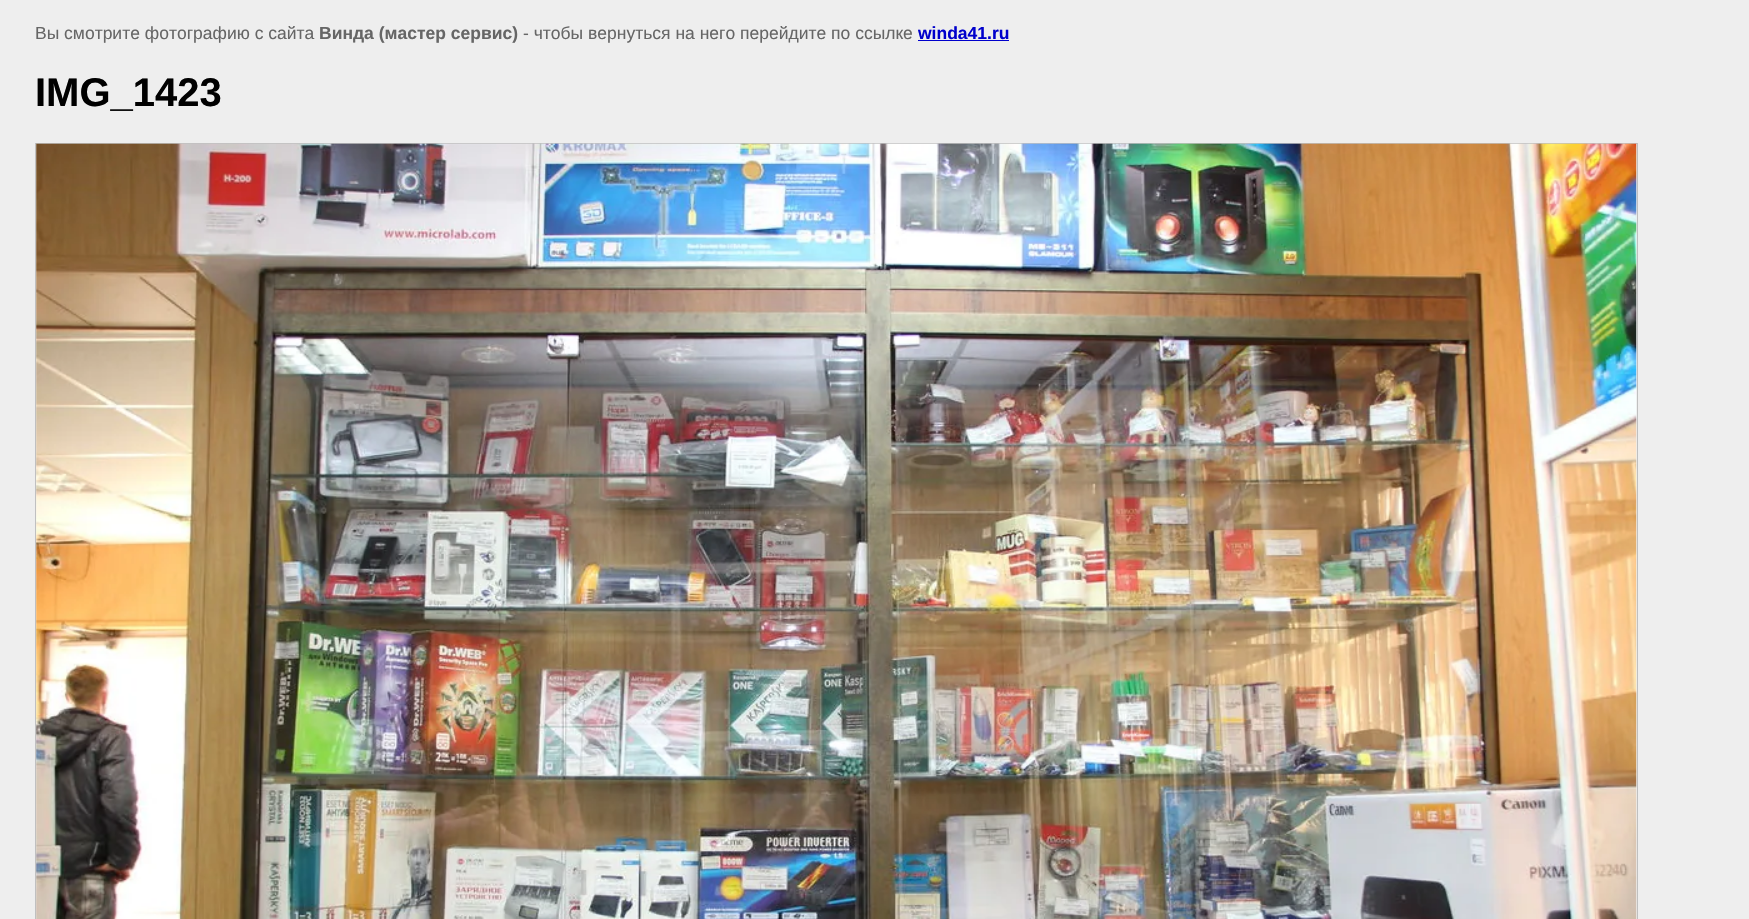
void draw(SkCanvas* c) {
SkPaint p;
p.setAntiAlias(true);
auto F=[&](const char* family, int weight, float size, bool italic = false){SkFontStyle style(weight, SkFontStyle::kNormal_Width,italic ? SkFontStyle::kItalic_Slant : SkFontStyle::kUpright_Slant);SkFont result(fontMgr->matchFamilyStyle(family, style), size);result.setSubpixel(true);return result;};
auto T=[&](const char* s, float x, float y, const SkFont& font){c->drawString(s, x, y, font, p);};
auto R=[&](float x, float y, float w, float h){c->drawRect(SkRect::MakeXYWH(x, y, w, h), p);};
auto I=[&](const char* path, float x, float y, float w, float h){auto image = SkImages::DeferredFromEncodedData(SkData::MakeFromFileName(path));c->drawImageRect(image, SkRect::MakeXYWH(x, y, w, h), SkSamplingOptions());};
c->clear(0xffeeeeee);
auto f1 = F("Liberation Sans",400,17.5);
p.setColor(0xff666666);
T("Вы смотрите фотографию с сайта",35,39,f1);
auto f2 = F("Liberation Sans",700,17.5);
T("Винда (мастер сервис)",319,39,f2);
T("- чтобы вернуться на него перейдите по ссылке",523,39,f1);
p.setColor(0xff0000cc);
T("winda41.ru",918,39,f2);
R(918,40,91,1);
auto f3 = F("Liberation Sans",700,40);
p.setColor(0xff000000);
T("IMG_1423",35,106,f3);
p.setStroke(true);
p.setStrokeWidth(1);
p.setColor(0xffc0c0c0);
c->drawRect(SkRect::MakeXYWH(35.5,143.5,1602,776),p);
I("1.png",36,143,1601,776);
}
